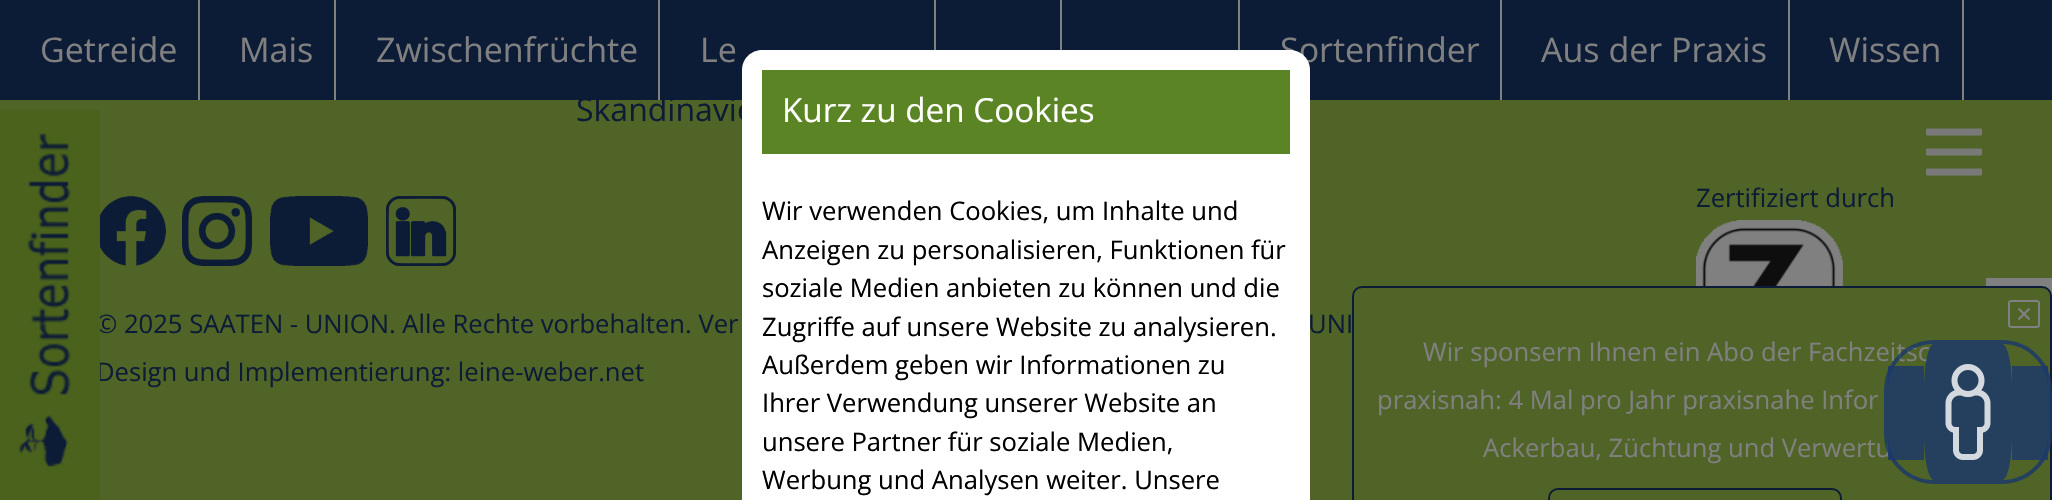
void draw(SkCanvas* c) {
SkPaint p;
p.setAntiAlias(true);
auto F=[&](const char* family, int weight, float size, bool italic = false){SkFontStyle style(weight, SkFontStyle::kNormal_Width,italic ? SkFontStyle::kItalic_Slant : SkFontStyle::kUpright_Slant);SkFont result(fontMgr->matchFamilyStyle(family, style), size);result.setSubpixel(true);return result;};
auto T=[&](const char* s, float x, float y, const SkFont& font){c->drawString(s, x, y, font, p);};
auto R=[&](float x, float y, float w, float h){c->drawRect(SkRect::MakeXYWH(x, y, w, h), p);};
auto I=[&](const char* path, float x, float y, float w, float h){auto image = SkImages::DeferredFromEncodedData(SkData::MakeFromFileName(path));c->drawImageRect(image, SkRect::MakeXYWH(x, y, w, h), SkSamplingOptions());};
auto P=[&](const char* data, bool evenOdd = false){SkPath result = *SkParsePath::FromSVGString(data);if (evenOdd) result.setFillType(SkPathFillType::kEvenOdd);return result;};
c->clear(0xff808080);
p.setColor(0xff0d1c36);
R(0,0,2052,100);
p.setColor(0xff808080);
R(198,0,2,100);
auto f1 = F("Open Sans",400,34);
T("Getreide",40,62,f1);
R(334,0,2,100);
T("Mais",239,62,f1);
p.setColor(0xff4f6426);
R(0,100,2052,178);
auto f2 = F("Open Sans",400,32);
p.setColor(0xff0d1c36);
T("Skandinavie",576,121,f2);
p.setColor(0xff808080);
R(658,0,2,100);
T("Zwischenfrüchte",376,62,f1);
R(934,0,2,50);
T("Le",700,62,f1);
R(1060,0,2,50);
R(1238,0,2,50);
R(1500,0,2,100);
T("Sortenfinder",1280,62,f1);
R(1788,0,2,100);
T("Aus der Praxis",1541,62,f1);
R(1962,0,2,100);
T("Wissen",1829,62,f1);
I("1.png",1926,128,56,48);
p.setColor(0xff4f6426);
R(66,278,1920,222);
auto f3 = F("Open Sans",400,25.6);
p.setColor(0xff0d1c36);
T("Zertifiziert durch",1696,207,f3);
I("2.png",1696,220,147,66);
I("3.png",100,196,66,70);
I("4.png",182,196,70,70);
I("5.png",270,196,98,70);
I("6.png",386,196,70,70);
T("© 2025 SAATEN - UNION. Alle Rechte vorbehalten. Ver",96,333,f3);
T("UNI",1308,333,f3);
T("Design und Implementierung: leine-weber.net",96,381,f3);
p.setColor(0xff4f6426);
c->drawRoundRect(SkRect::MakeXYWH(1353,287,698,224),9,9,p);
p.setStroke(true);
p.setStrokeWidth(2);
p.setColor(0xff0d1c36);
c->drawRoundRect(SkRect::MakeXYWH(1353,287,698,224),9,9,p);
I("7.png",2008,300,32,28);
p.setStroke(false);
p.setColor(0xff808080);
T("Wir sponsern Ihnen ein Abo der Fachzeitsc",1423,361,f3);
T("praxisnah: 4 Mal pro Jahr praxisnahe Infor",1377,409,f3);
T("Ackerbau, Züchtung und Verwertu",1483,457,f3);
p.setStroke(true);
p.setColor(0xff0d1c36);
c->drawRoundRect(SkRect::MakeXYWH(1549,489,292,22),9,9,p);
I("8.png",0,110,100,390);
p.setStroke(false);
p.setColor(0xffffffff);
c->drawPath(P("M762 50h528c11 0 20 9 20 20v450h-568v-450c0-11 9-20 20-20z"),p);
p.setColor(0xff5b8424);
R(762,70,528,84);
auto f4 = F("Open Sans",400,33.25);
p.setColor(0xffffffff);
T("Kurz zu den Cookies",782,122,f4);
p.setColor(0xff000000);
T("Wir verwenden Cookies, um Inhalte und",762,220,f3);
T("Anzeigen zu personalisieren, Funktionen für",762,259,f3);
T("soziale Medien anbieten zu können und die",762,297,f3);
T("Zugriffe auf unsere Website zu analysieren.",762,336,f3);
T("Außerdem geben wir Informationen zu",762,374,f3);
T("Ihrer Verwendung unserer Website an",762,412,f3);
T("unsere Partner für soziale Medien,",762,451,f3);
T("Werbung und Analysen weiter. Unsere",762,489,f3);
p.setColor(0xcc19376b);
c->drawPath(P("M1934 344h68c6 0 10 21 10 46v44c0 25-4 46-10 46h-68c-6 0-10-21-10-46v-44c0-25 4-46 10-46z"),p);
p.setStroke(true);
p.setStrokeWidth(4);
c->drawRoundRect(SkRect::MakeXYWH(1886,342,164,140),48,48,p);
p.setStroke(false);
R(2012,366,36,94);
R(1888,366,36,94);
I("9.png",1945,364,46,96);
}
